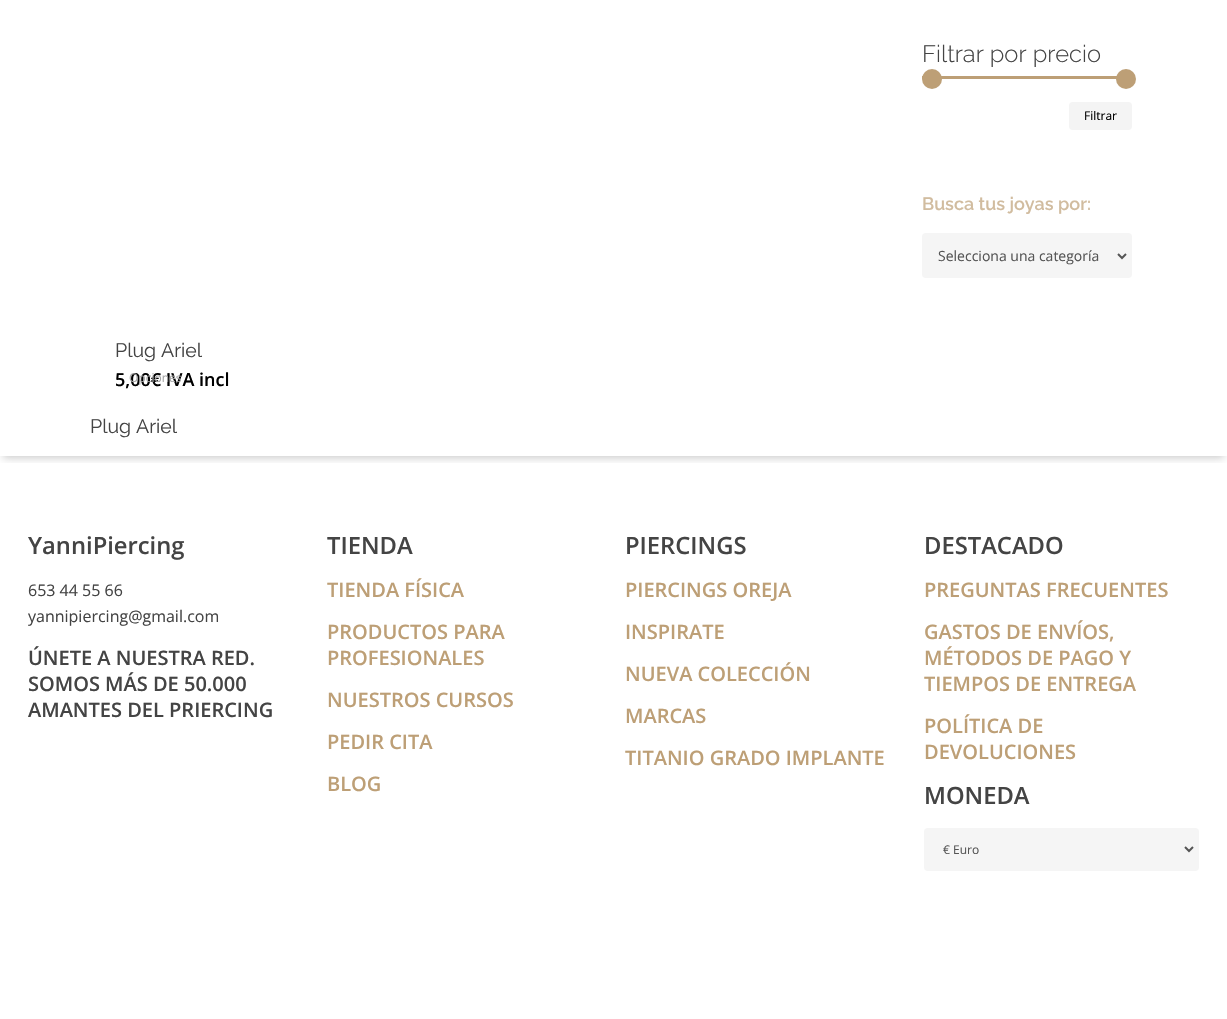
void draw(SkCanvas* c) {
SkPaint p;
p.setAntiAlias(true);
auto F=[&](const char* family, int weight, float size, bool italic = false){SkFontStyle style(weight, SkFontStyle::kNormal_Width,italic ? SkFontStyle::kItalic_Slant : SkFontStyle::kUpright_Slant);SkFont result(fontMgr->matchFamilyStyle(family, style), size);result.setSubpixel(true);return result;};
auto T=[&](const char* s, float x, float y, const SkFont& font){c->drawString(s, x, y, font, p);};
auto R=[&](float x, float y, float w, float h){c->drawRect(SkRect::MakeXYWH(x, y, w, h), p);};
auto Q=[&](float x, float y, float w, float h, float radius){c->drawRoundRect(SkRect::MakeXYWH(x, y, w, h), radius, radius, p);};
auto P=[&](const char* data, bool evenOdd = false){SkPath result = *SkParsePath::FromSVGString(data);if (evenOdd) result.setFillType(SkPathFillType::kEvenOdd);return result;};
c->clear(0xffffffff);
c->save();
c->clipRect(SkRect::MakeXYWH(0,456,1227,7));
p.setColor(0x33000000);
p.setMaskFilter(SkMaskFilter::MakeBlur(kNormal_SkBlurStyle, 4));
c->drawRect(SkRect::MakeXYWH(3,-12,1221,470),p);
p.setMaskFilter(nullptr);
c->restore();
auto f1 = F("Raleway",300,23.75);
p.setColor(0xff444444);
T("Filtrar por precio",922,62,f1);
p.setColor(0xffbd9f76);
R(922,76,195,3);
c->drawCircle(932,79,10,p);
c->drawCircle(1126,79,10,p);
p.setColor(0xfff4f4f4);
Q(1069,102,63,28,4);
auto f2 = F("Open Sans",400,12);
p.setColor(0xff000000);
T("Filtrar",1084,120,f2);
auto f3 = F("Raleway",600,18);
p.setColor(0xffd1bc9f);
T("Busca tus joyas por:",922,210,f3);
p.setColor(0xfff5f5f5);
Q(922,233,210,45,4);
p.setStroke(true);
p.setStrokeWidth(2);
p.setColor(0xff555555);
c->drawPath(P("M1118 254l4 4l4-4"),p);
auto f4 = F("Open Sans",400,14);
p.setStroke(false);
T("Selecciona una categoría",938,261,f4);
auto f5 = F("Raleway",400,19.5);
p.setColor(0xff444444);
T("Plug Ariel",115,357,f5);
auto f6 = F("Open Sans",600,18);
p.setColor(0xff000000);
T("5,00€ IVA incl",115,386,f6);
p.setColor(0xffa6a6a6);
T("Opciones",129,382,f2);
p.setColor(0xff444444);
T("Plug Ariel",90,433,f5);
auto f7 = F("Open Sans",600,23.75);
T("YanniPiercing",28,554,f7);
auto f8 = F("Open Sans",400,16);
T("653 44 55 66",28,596,f8);
T("yannipiercing@gmail.com",28,622,f8);
auto f9 = F("Open Sans",600,20);
T("ÚNETE A NUESTRA RED.",28,665,f9);
T("SOMOS MÁS DE 50.000",28,691,f9);
T("AMANTES DEL PRIERCING",28,717,f9);
T("TIENDA",327,554,f7);
p.setColor(0xffbd9f76);
T("TIENDA FÍSICA",327,597,f9);
T("PRODUCTOS PARA",327,639,f9);
T("PROFESIONALES",327,665,f9);
T("NUESTROS CURSOS",327,707,f9);
T("PEDIR CITA",327,749,f9);
T("BLOG",327,791,f9);
p.setColor(0xff444444);
T("PIERCINGS",625,554,f7);
p.setColor(0xffbd9f76);
T("PIERCINGS OREJA",625,597,f9);
T("INSPIRATE",625,639,f9);
T("NUEVA COLECCIÓN",625,681,f9);
T("MARCAS",625,723,f9);
T("TITANIO GRADO IMPLANTE",625,765,f9);
p.setColor(0xff444444);
T("DESTACADO",924,554,f7);
p.setColor(0xffbd9f76);
T("PREGUNTAS FRECUENTES",924,597,f9);
T("GASTOS DE ENVÍOS,",924,639,f9);
T("MÉTODOS DE PAGO Y",924,665,f9);
T("TIEMPOS DE ENTREGA",924,691,f9);
T("POLÍTICA DE",924,733,f9);
T("DEVOLUCIONES",924,759,f9);
p.setColor(0xff444444);
T("MONEDA",924,804,f7);
p.setColor(0xfff5f5f5);
Q(924,828,275,43,4);
p.setStroke(true);
p.setColor(0xff555555);
c->drawPath(P("M1185 847l4 4l4-4"),p);
p.setStroke(false);
T("€ Euro",943,854,f2);
}
